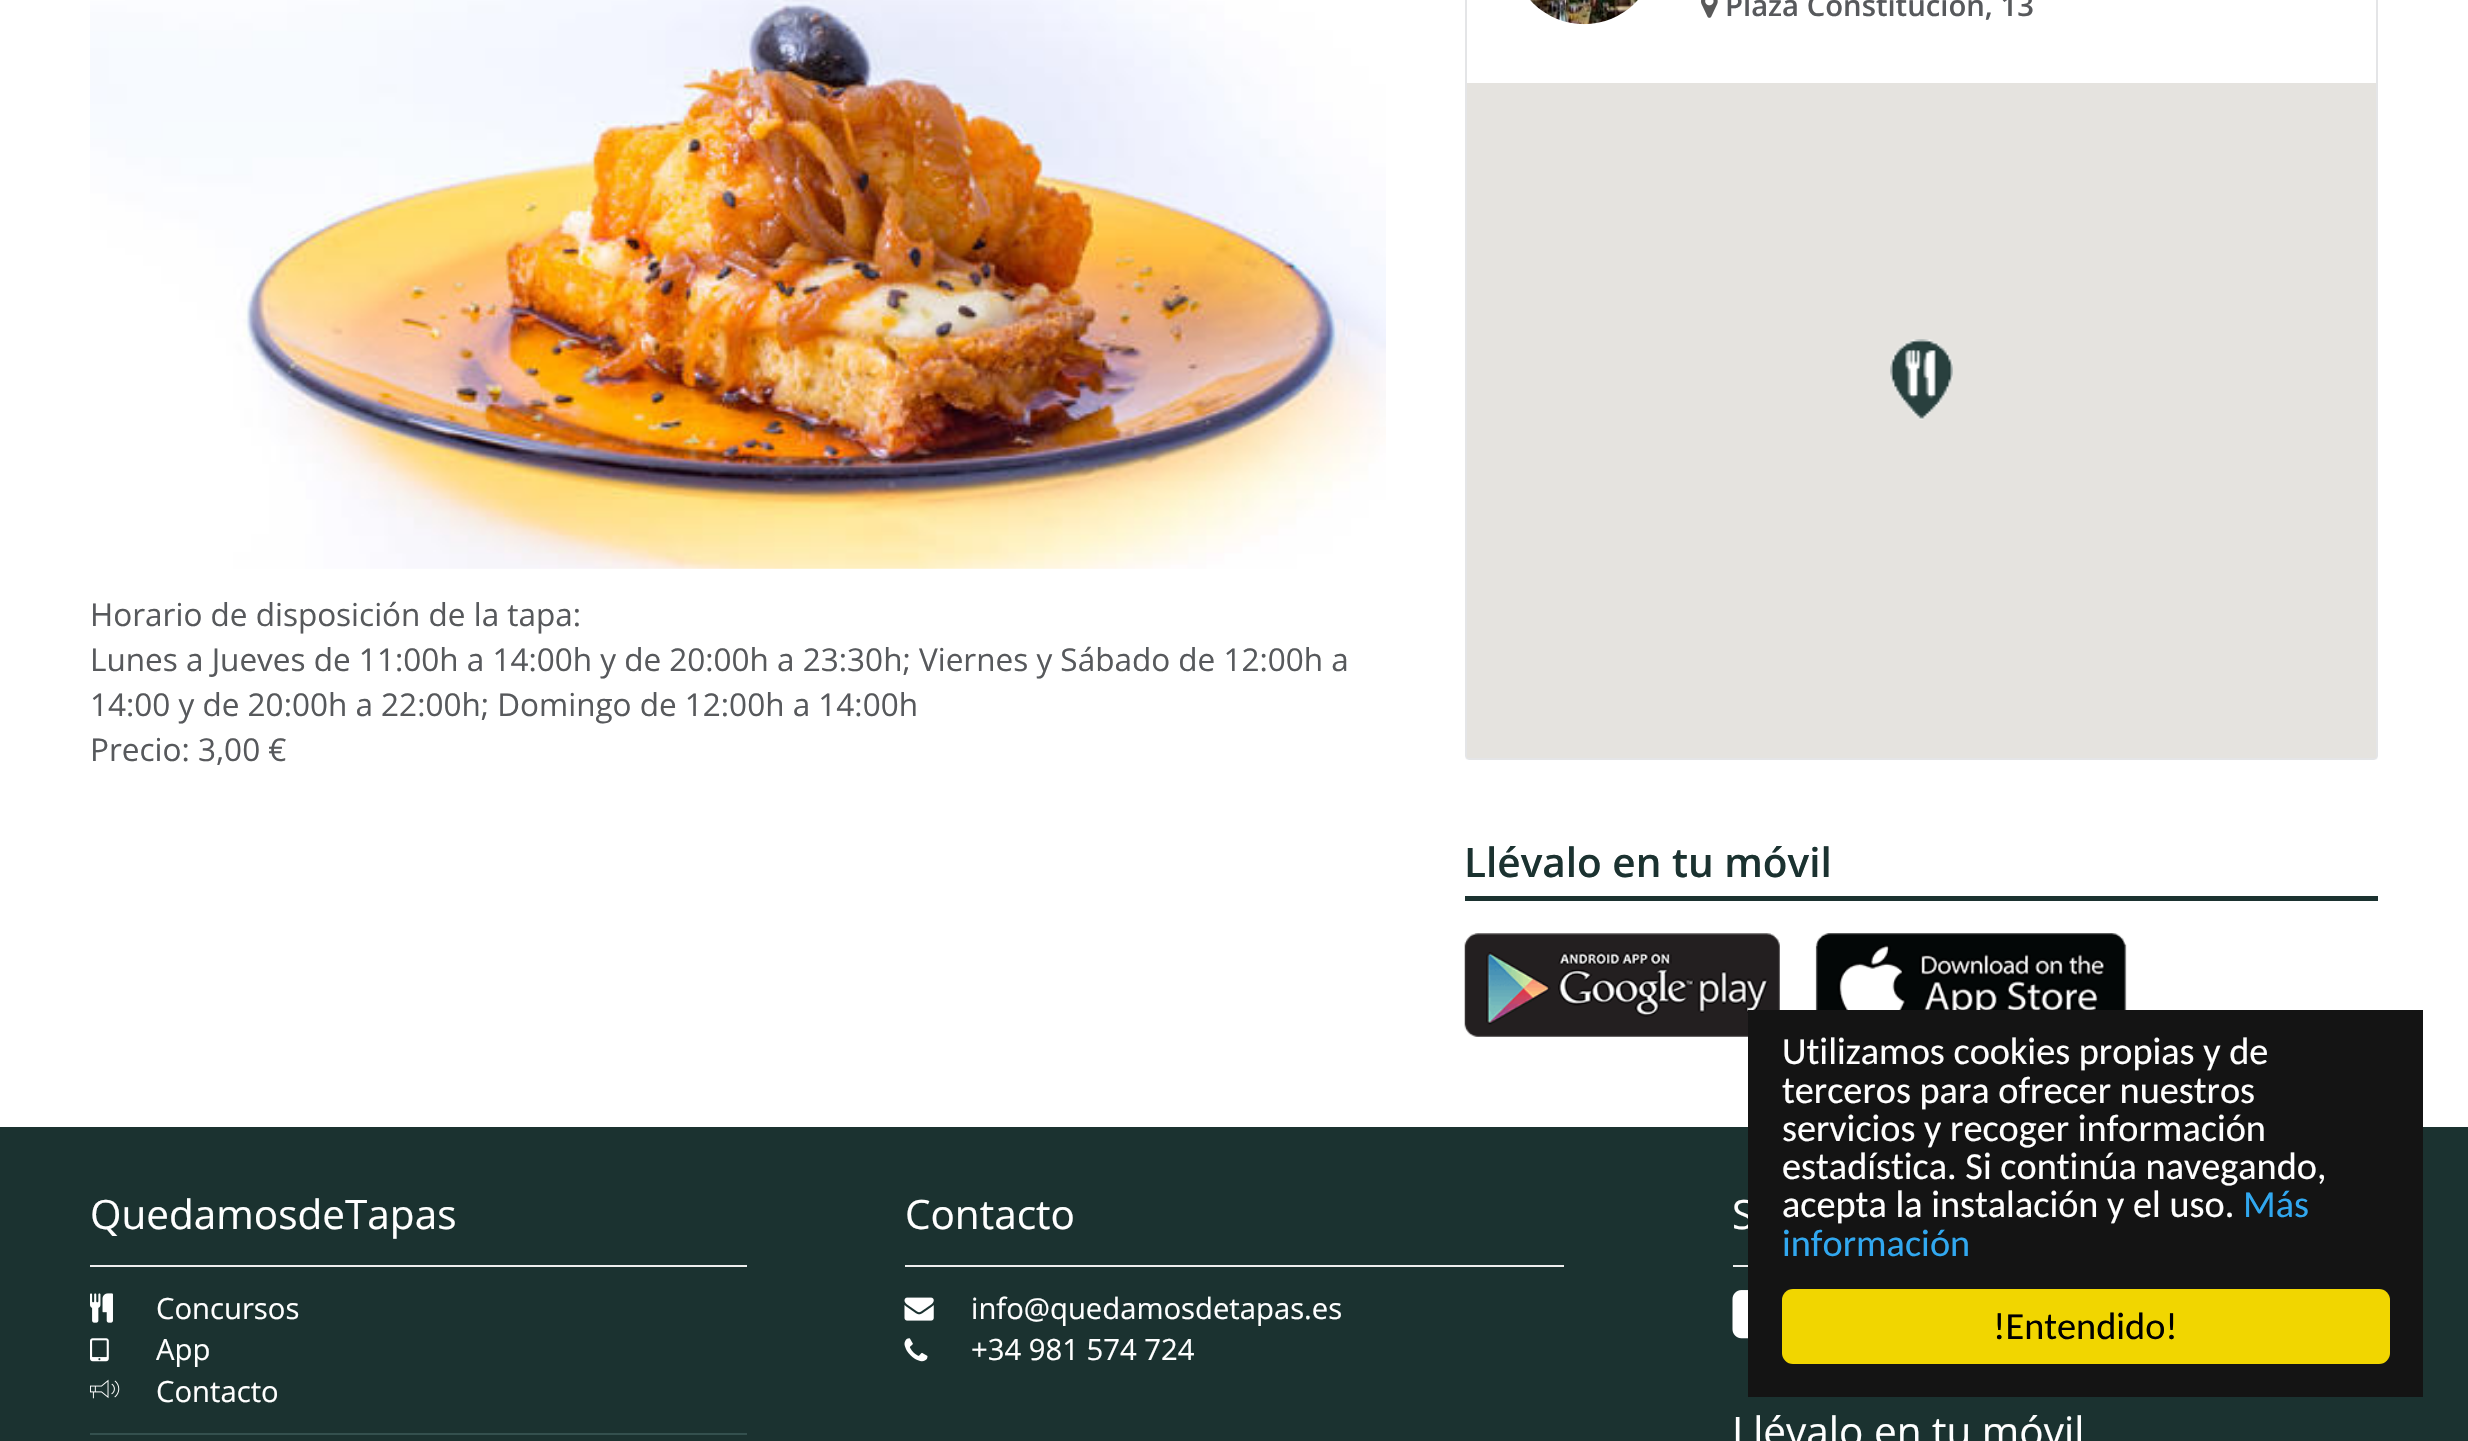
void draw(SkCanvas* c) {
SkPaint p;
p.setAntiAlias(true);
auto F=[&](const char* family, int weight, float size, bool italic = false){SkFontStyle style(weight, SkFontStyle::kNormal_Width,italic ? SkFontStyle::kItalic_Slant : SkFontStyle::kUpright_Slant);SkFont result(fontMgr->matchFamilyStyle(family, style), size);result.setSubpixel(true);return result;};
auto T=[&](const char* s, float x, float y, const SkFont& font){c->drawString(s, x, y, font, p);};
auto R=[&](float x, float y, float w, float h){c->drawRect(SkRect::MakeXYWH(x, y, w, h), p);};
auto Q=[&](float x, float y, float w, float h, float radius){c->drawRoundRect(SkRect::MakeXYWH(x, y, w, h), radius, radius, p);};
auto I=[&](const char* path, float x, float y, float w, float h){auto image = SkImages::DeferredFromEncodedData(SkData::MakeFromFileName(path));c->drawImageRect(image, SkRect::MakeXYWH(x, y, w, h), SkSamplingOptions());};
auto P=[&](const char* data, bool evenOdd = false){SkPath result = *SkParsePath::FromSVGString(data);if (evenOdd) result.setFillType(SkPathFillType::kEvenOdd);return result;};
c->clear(0xffffffff);
I("1.png",90,0,1296,569);
auto f1 = F("Open Sans",400,31.5);
p.setColor(0xff57595c);
T("Horario de disposición de la tapa:",90,626,f1);
T("Lunes a Jueves de 11:00h a 14:00h y de 20:00h a 23:30h; Viernes y Sábado de 12:00h a",90,671,f1);
T("14:00 y de 20:00h a 22:00h; Domingo de 12:00h a 14:00h",90,716,f1);
T("Precio: 3,00 €",90,761,f1);
p.setColor(0xffe4e5e7);
c->drawPath(P("M2377-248l1 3v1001l-1 3l-2-2l1-1v-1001z"),p);
c->drawPath(P("M2377 759l-3 1h-905l-3-1l2-2l1 1h905l1-1z"),p);
c->drawPath(P("M1466 759l-1-3v-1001l1-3l1 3v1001l1 1z"),p);
I("2.png",1530,0,108,25);
I("3.png",1701,0,17,18);
auto f2 = F("Open Sans",600,29.25);
p.setColor(0xff57595c);
T("Plaza Constitución, 13",1725,16,f2);
p.setColor(0xffe5e3df);
R(1467,83,909,675);
I("4.png",1890,339,63,81);
p.setColor(0xff1b3230);
R(1465,896,913,5);
auto f3 = F("Open Sans",600,40.5);
T("Llévalo en tu móvil",1464,877,f3);
I("5.png",1464,933,316,104);
I("6.png",1815,933,312,77);
R(0,1127,2468,314);
auto f4 = F("Open Sans",400,40.5);
p.setColor(0xffffffff);
T("S",1732,1229,f4);
p.setColor(0xff141414);
R(1748,1010,675,387);
auto f5 = F("Carlito",400,38.25);
p.setColor(0xffffffff);
T("Utilizamos cookies propias y de",1782,1064,f5);
T("terceros para ofrecer nuestros",1782,1103,f5);
T("servicios y recoger información",1782,1141,f5);
T("estadística. Si continúa navegando,",1782,1179,f5);
T("acepta la instalación y el uso.",1782,1217,f5);
p.setColor(0xff31a8f0);
T("Más",2243,1217,f5);
T("información",1782,1256,f5);
p.setColor(0xfff1d600);
Q(1782,1289,608,75,11);
p.setColor(0xff000000);
T("!Entendido!",1993,1339,f5);
p.setColor(0xffffffff);
T("QuedamosdeTapas",90,1229,f4);
p.setColor(0xffeeeeee);
R(90,1265,657,2);
I("7.png",90,1293,23,30);
auto f6 = F("Open Sans",400,29.25);
p.setColor(0xffffffff);
T("Concursos",156,1319,f6);
I("8.png",90,1338,19,24);
T("App",156,1360,f6);
I("9.png",90,1379,30,20);
T("Contacto",156,1402,f6);
p.setColor(0xff34504e);
R(90,1433,657,2);
p.setColor(0xffffffff);
T("Contacto",905,1229,f4);
p.setColor(0xffeeeeee);
R(905,1265,659,2);
I("10.png",904,1297,30,24);
p.setColor(0xffffffff);
T("info@quedamosdetapas.es",971,1319,f6);
I("11.png",904,1338,24,24);
T("+34 981 574 724",971,1360,f6);
p.setColor(0xffeeeeee);
R(1733,1265,15,2);
I("12.png",1732,1290,16,49);
p.setColor(0xffffffff);
T("Llévalo en tu móvil",1732,1446,f4);
}
